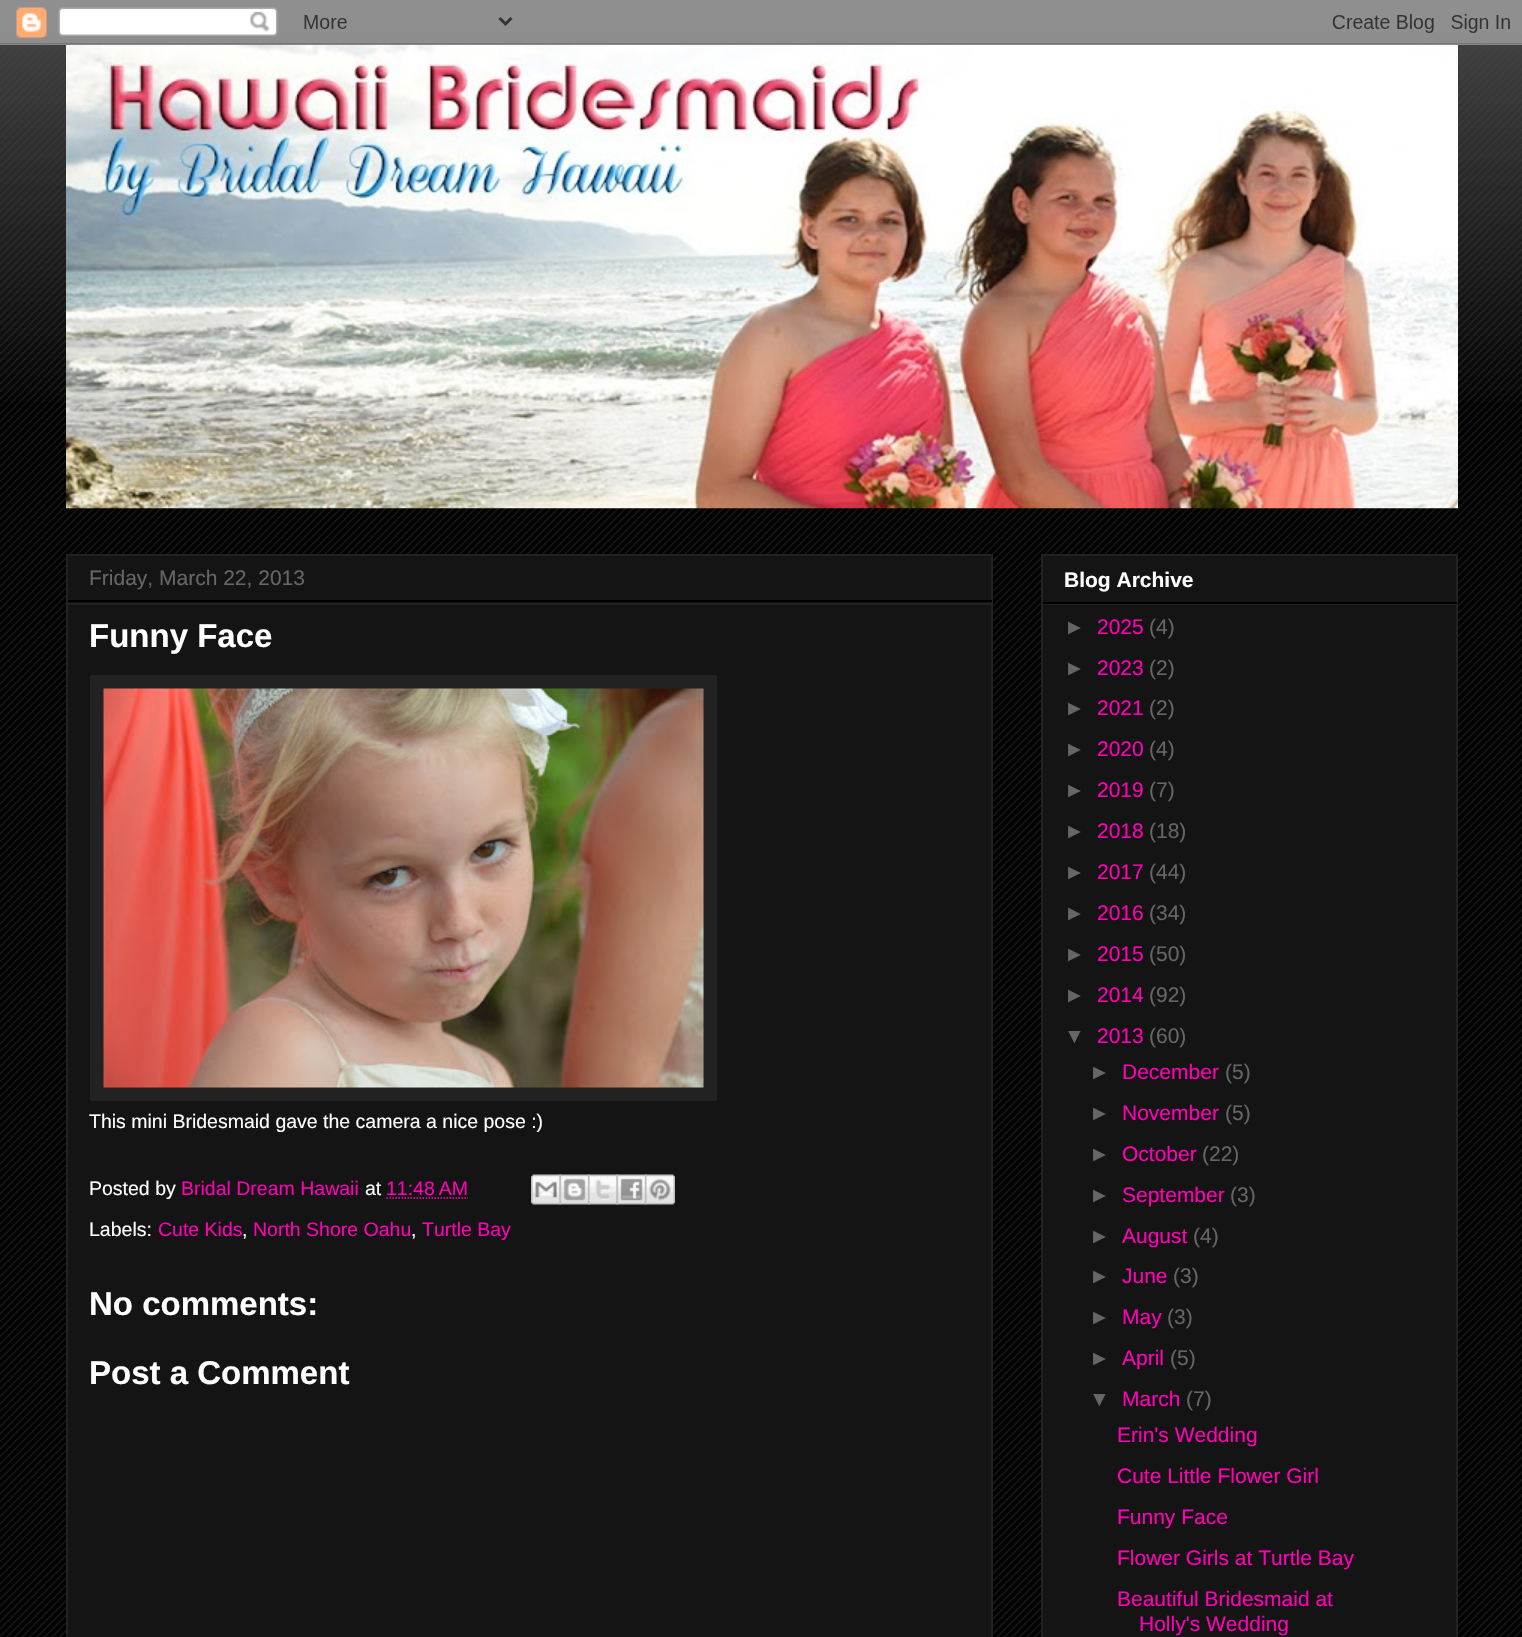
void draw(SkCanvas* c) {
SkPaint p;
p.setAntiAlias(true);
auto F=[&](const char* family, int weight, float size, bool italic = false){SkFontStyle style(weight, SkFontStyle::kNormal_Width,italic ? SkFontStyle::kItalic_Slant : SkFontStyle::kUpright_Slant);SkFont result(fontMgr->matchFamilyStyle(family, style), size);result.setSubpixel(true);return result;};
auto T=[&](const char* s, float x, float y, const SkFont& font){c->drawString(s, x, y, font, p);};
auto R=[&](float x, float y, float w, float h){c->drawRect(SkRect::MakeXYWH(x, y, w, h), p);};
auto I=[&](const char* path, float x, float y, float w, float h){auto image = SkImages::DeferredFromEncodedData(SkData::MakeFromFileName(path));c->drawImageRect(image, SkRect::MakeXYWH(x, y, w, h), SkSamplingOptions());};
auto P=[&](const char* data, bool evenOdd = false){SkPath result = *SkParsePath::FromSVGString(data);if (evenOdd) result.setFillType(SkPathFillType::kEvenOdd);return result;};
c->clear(0xff000000);
I("1.png",0,20,1522,1617);
I("2.png",0,0,1522,402);
I("3.png",0,0,1522,45);
I("4.png",66,45,1392,464);
p.setColor(0xff141414);
c->drawRect(SkRect::MakeXYWH(67,555,925,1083),p);
p.setStroke(true);
p.setStrokeWidth(2);
p.setColor(0xff222222);
c->drawRect(SkRect::MakeXYWH(67,555,925,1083),p);
p.setStroke(false);
p.setColor(0xff000000);
R(68,600,924,2);
auto f1 = F("Liberation Sans",400,21);
p.setColor(0xff666666);
T("Friday, March 22, 2013",89,585,f1);
p.setColor(0xff222222);
R(68,603,924,2);
auto f2 = F("Liberation Sans",700,33);
p.setColor(0xffffffff);
T("Funny Face",89,647,f2);
p.setColor(0xff222222);
R(90,675,627,426);
I("5.png",103,688,601,400);
auto f3 = F("Liberation Sans",400,19.5);
p.setColor(0xffffffff);
T("This mini Bridesmaid gave the camera a nice pose :)",89,1128,f3);
T("Posted by",89,1195,f3);
p.setColor(0xffff00b6);
T("Bridal Dream Hawaii",181,1195,f3);
p.setColor(0xffffffff);
T("at",365,1195,f3);
p.setColor(0xffff00b6);
T("11:48 AM",386,1195,f3);
p.setStroke(true);
p.setStrokeWidth(1.5);
p.setPathEffect(SkDashPathEffect::Make({{1.5f,1.5f}}, 0));
c->drawPath(P("M386.5 1198h81.5"),p);
p.setPathEffect(nullptr);
I("6.png",531,1174,30,31);
I("7.png",559,1174,31,31);
I("8.png",588,1174,30,31);
I("9.png",616,1174,31,31);
I("10.png",645,1174,30,31);
p.setStroke(false);
p.setColor(0xffffffff);
T("Labels:",89,1236,f3);
p.setColor(0xffff00b6);
T("Cute Kids",158,1236,f3);
p.setColor(0xffffffff);
T(",",242,1236,f3);
p.setColor(0xffff00b6);
T("North Shore Oahu",253,1236,f3);
p.setColor(0xffffffff);
T(",",411,1236,f3);
p.setColor(0xffff00b6);
T("Turtle Bay",422,1236,f3);
p.setColor(0xffffffff);
T("No comments:",89,1315,f2);
T("Post a Comment",89,1384,f2);
p.setColor(0xff141414);
c->drawRect(SkRect::MakeXYWH(1042,555,415,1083),p);
p.setStroke(true);
p.setStrokeWidth(2);
p.setColor(0xff222222);
c->drawRect(SkRect::MakeXYWH(1042,555,415,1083),p);
p.setStroke(false);
p.setColor(0xff000000);
R(1043,602,414,2);
auto f4 = F("Liberation Sans",700,21);
p.setColor(0xffffffff);
T("Blog Archive",1064,587,f4);
p.setColor(0xff222222);
R(1043,604,414,1);
p.setColor(0xff666666);
T("►",1064,634,f1);
p.setColor(0xffff00b6);
T("2025",1097,634,f1);
p.setColor(0xff666666);
T("(4)",1149,634,f1);
T("►",1064,675,f1);
p.setColor(0xffff00b6);
T("2023",1097,675,f1);
p.setColor(0xff666666);
T("(2)",1149,675,f1);
T("►",1064,715,f1);
p.setColor(0xffff00b6);
T("2021",1097,715,f1);
p.setColor(0xff666666);
T("(2)",1149,715,f1);
T("►",1064,756,f1);
p.setColor(0xffff00b6);
T("2020",1097,756,f1);
p.setColor(0xff666666);
T("(4)",1149,756,f1);
T("►",1064,797,f1);
p.setColor(0xffff00b6);
T("2019",1097,797,f1);
p.setColor(0xff666666);
T("(7)",1149,797,f1);
T("►",1064,838,f1);
p.setColor(0xffff00b6);
T("2018",1097,838,f1);
p.setColor(0xff666666);
T("(18)",1149,838,f1);
T("►",1064,879,f1);
p.setColor(0xffff00b6);
T("2017",1097,879,f1);
p.setColor(0xff666666);
T("(44)",1149,879,f1);
T("►",1064,920,f1);
p.setColor(0xffff00b6);
T("2016",1097,920,f1);
p.setColor(0xff666666);
T("(34)",1149,920,f1);
T("►",1064,961,f1);
p.setColor(0xffff00b6);
T("2015",1097,961,f1);
p.setColor(0xff666666);
T("(50)",1149,961,f1);
T("►",1064,1002,f1);
p.setColor(0xffff00b6);
T("2014",1097,1002,f1);
p.setColor(0xff666666);
T("(92)",1149,1002,f1);
T("▼",1064,1043,f1);
p.setColor(0xffff00b6);
T("2013",1097,1043,f1);
p.setColor(0xff666666);
T("(60)",1149,1043,f1);
T("►",1089,1079,f1);
p.setColor(0xffff00b6);
T("December",1122,1079,f1);
p.setColor(0xff666666);
T("(5)",1225,1079,f1);
T("►",1089,1120,f1);
p.setColor(0xffff00b6);
T("November",1122,1120,f1);
p.setColor(0xff666666);
T("(5)",1225,1120,f1);
T("►",1089,1161,f1);
p.setColor(0xffff00b6);
T("October",1122,1161,f1);
p.setColor(0xff666666);
T("(22)",1202,1161,f1);
T("►",1089,1202,f1);
p.setColor(0xffff00b6);
T("September",1122,1202,f1);
p.setColor(0xff666666);
T("(3)",1230,1202,f1);
T("►",1089,1243,f1);
p.setColor(0xffff00b6);
T("August",1122,1243,f1);
p.setColor(0xff666666);
T("(4)",1193,1243,f1);
T("►",1089,1283,f1);
p.setColor(0xffff00b6);
T("June",1122,1283,f1);
p.setColor(0xff666666);
T("(3)",1173,1283,f1);
T("►",1089,1324,f1);
p.setColor(0xffff00b6);
T("May",1122,1324,f1);
p.setColor(0xff666666);
T("(3)",1167,1324,f1);
T("►",1089,1365,f1);
p.setColor(0xffff00b6);
T("April",1122,1365,f1);
p.setColor(0xff666666);
T("(5)",1170,1365,f1);
T("▼",1089,1406,f1);
p.setColor(0xffff00b6);
T("March",1122,1406,f1);
p.setColor(0xff666666);
T("(7)",1186,1406,f1);
p.setColor(0xffff00b6);
T("Erin's Wedding",1117,1442,f1);
T("Cute Little Flower Girl",1117,1483,f1);
T("Funny Face",1117,1524,f1);
T("Flower Girls at Turtle Bay",1117,1565,f1);
T("Beautiful Bridesmaid at",1117,1606,f1);
T("Holly's Wedding",1139,1631,f1);
}
